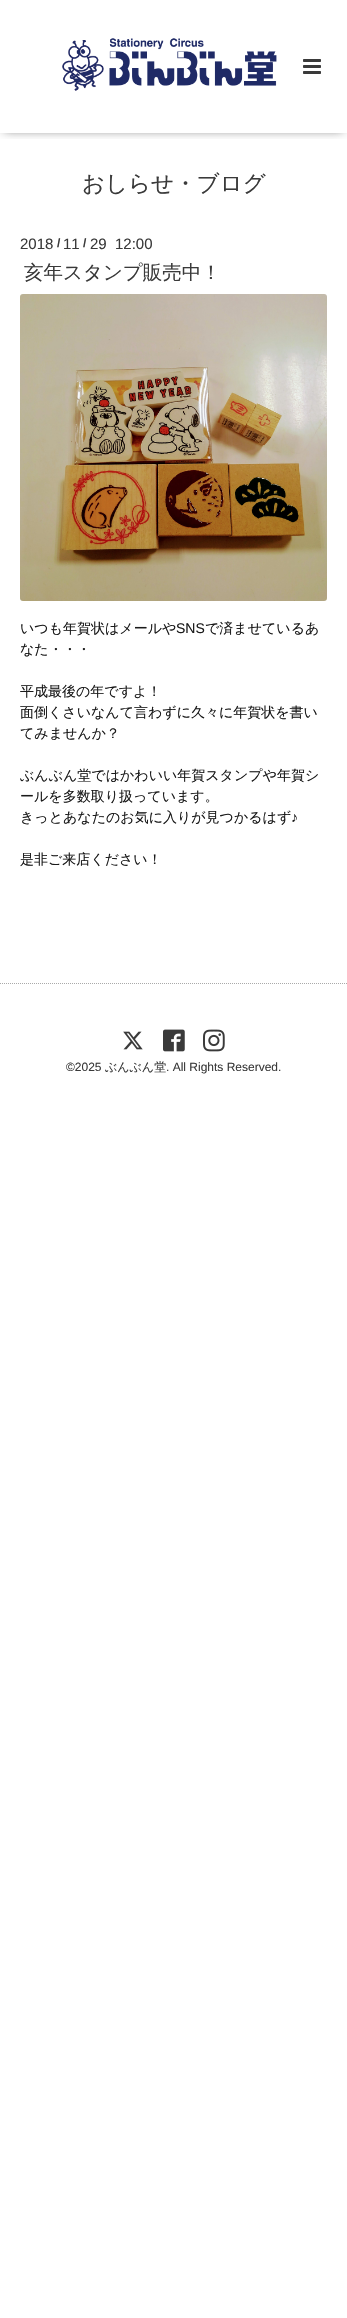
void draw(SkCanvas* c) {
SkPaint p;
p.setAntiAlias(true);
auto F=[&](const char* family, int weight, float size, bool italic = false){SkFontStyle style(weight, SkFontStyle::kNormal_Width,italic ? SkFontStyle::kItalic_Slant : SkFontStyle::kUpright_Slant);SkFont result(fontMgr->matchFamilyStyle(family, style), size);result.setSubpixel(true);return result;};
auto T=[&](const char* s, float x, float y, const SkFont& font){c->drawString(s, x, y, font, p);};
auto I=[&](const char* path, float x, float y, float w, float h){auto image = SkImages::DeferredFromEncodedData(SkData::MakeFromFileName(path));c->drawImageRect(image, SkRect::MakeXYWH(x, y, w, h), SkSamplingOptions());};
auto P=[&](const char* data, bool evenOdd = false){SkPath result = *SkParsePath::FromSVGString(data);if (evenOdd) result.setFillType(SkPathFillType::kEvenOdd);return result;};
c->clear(0xffffffff);
c->save();
c->clipRect(SkRect::MakeXYWH(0,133,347,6));
p.setColor(0x99000000);
p.setMaskFilter(SkMaskFilter::MakeBlur(kNormal_SkBlurStyle, 5));
c->drawRect(SkRect::MakeXYWH(4,5,339,125),p);
p.setMaskFilter(nullptr);
c->restore();
I("1.png",62,38,215,53);
I("2.png",303,59,18,15);
auto f1 = F("WenQuanYi Zen Hei",500,22.5);
p.setColor(0xff3a3a3a);
T("おしらせ・ブログ",82,191,f1);
auto f2 = F("Liberation Sans",400,15);
T("2018",20,249,f2);
auto f3 = F("Liberation Sans",700,12);
T("/",57,247,f3);
T("11",63,249,f2);
T("/",83,247,f3);
T("29  12:00",90,249,f2);
auto f4 = F("WenQuanYi Zen Hei",500,19.5);
T("亥年スタンプ販売中！",24,279,f4);
I("3.png",20,294,307,307);
auto f5 = F("WenQuanYi Zen Hei",500,14);
p.setColor(0xff1a1a1a);
T("いつも年賀状はメールや",20,633,f5);
auto f6 = F("Liberation Sans",400,14);
T("SNS",176,633,f6);
T("で済ませているあ",205,633,f5);
T("なた・・・",20,654,f5);
T("平成最後の年ですよ！",20,696,f5);
T("面倒くさいなんて言わずに久々に年賀状を書い",20,717,f5);
T("てみませんか？",20,738,f5);
T("ぶんぶん堂ではかわいい年賀スタンプや年賀シ",20,780,f5);
T("ールを多数取り扱っています。",20,801,f5);
T("きっとあなたのお気に入りが見つかるはず",20,822,f5);
T("♪",291,822,f6);
T("是非ご来店ください！",20,864,f5);
p.setStroke(true);
p.setStrokeWidth(1);
p.setColor(0xffa9a9a9);
p.setPathEffect(SkDashPathEffect::Make({{1,1}}, 0));
c->drawPath(P("M0 983.5h347"),p);
p.setPathEffect(nullptr);
I("4.png",123,1031,20,19);
I("5.png",163,1029,22,23);
I("6.png",203,1029,22,23);
auto f7 = F("Liberation Sans",400,12);
p.setStroke(false);
p.setColor(0xff3a3a3a);
T("©2025",66,1071,f7);
auto f8 = F("WenQuanYi Zen Hei",500,12);
T("ぶんぶん堂",105,1071,f8);
T(". All Rights Reserved.",166,1071,f7);
}
